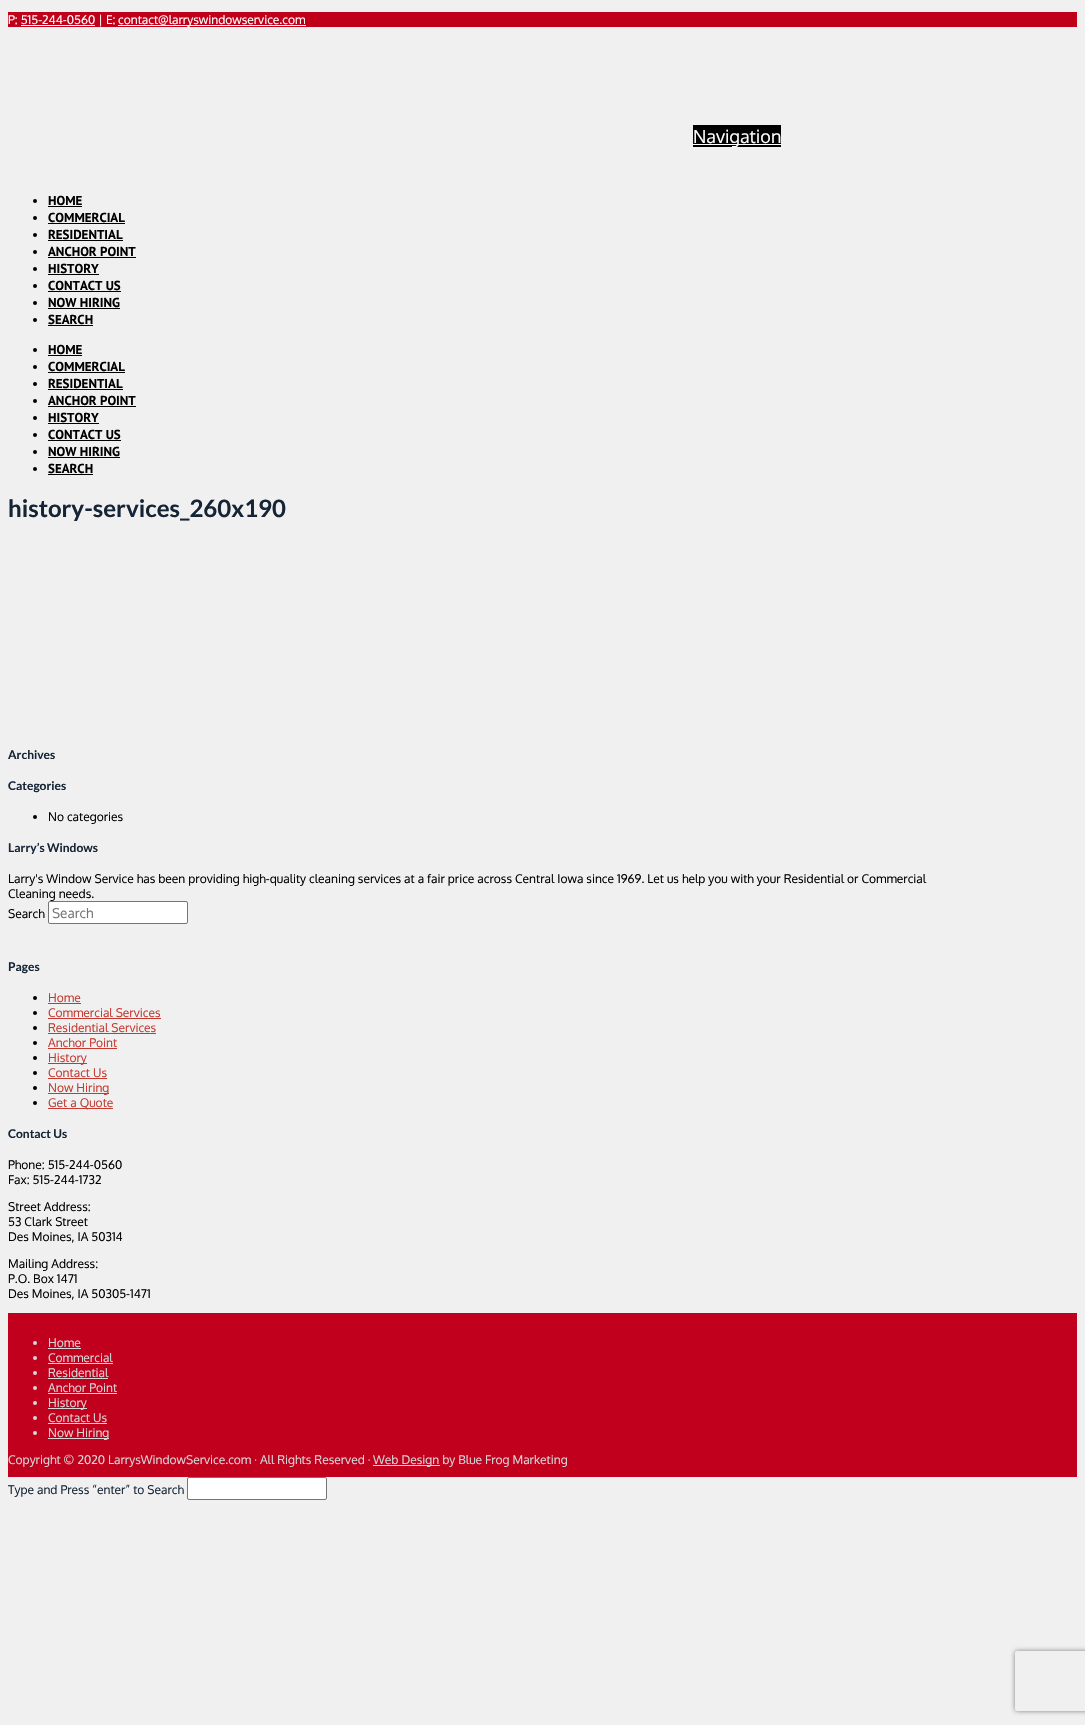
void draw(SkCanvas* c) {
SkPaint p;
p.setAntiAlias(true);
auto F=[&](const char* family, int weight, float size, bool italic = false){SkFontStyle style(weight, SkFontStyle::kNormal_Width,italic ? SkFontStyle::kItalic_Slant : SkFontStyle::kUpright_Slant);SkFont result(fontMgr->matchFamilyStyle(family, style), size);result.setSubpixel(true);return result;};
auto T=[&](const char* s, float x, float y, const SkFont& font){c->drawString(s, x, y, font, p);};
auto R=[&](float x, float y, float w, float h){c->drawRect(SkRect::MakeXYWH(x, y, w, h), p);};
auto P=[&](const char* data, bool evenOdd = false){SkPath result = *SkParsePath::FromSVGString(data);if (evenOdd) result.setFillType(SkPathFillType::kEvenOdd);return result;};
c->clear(0xfff0f0f0);
p.setColor(0xffc00019);
R(8,12,1069,15);
auto f1 = F("Oxygen",400,12);
p.setColor(0xffffffff);
T("P: 515-244-0560 | E:",8,24,f1);
R(118,25,188,1);
T("contact@larryswindowservice.com",118,24,f1);
R(21,25,74,1);
p.setColor(0xff000000);
R(693,125,88,22);
p.setColor(0xffffffff);
R(693,144,88,1);
auto f2 = F("Oxygen",400,18);
T("Navigation",693,143,f2);
p.setColor(0xff000000);
c->drawCircle(35,201,2,p);
auto f3 = F("PT Sans",700,13);
T("HOME",48,205,f3);
R(48,206,34,1);
c->drawCircle(35,218,2,p);
T("COMMERCIAL",48,222,f3);
R(48,223,77,1);
c->drawCircle(35,235,2,p);
T("RESIDENTIAL",48,239,f3);
R(48,240,75,1);
c->drawCircle(35,252,2,p);
T("ANCHOR POINT",48,256,f3);
R(48,257,88,1);
c->drawCircle(35,269,2,p);
T("HISTORY",48,273,f3);
R(48,274,51,1);
c->drawCircle(35,286,2,p);
T("CONTACT US",48,290,f3);
R(48,291,73,1);
c->drawCircle(35,303,2,p);
T("NOW HIRING",48,307,f3);
R(48,308,72,1);
c->drawCircle(35,320,2,p);
T("SEARCH",48,324,f3);
R(48,325,45,1);
c->drawCircle(35,350,2,p);
T("HOME",48,354,f3);
R(48,355,34,1);
c->drawCircle(35,367,2,p);
T("COMMERCIAL",48,371,f3);
R(48,372,77,1);
c->drawCircle(35,384,2,p);
T("RESIDENTIAL",48,388,f3);
R(48,389,75,1);
c->drawCircle(35,401,2,p);
T("ANCHOR POINT",48,405,f3);
R(48,406,88,1);
c->drawCircle(35,418,2,p);
T("HISTORY",48,422,f3);
R(48,423,51,1);
c->drawCircle(35,435,2,p);
T("CONTACT US",48,439,f3);
R(48,440,73,1);
c->drawCircle(35,452,2,p);
T("NOW HIRING",48,456,f3);
R(48,457,72,1);
c->drawCircle(35,469,2,p);
T("SEARCH",48,473,f3);
R(48,474,45,1);
auto f4 = F("Lato",700,24);
p.setColor(0xff162536);
T("history-services_260x190",8,517,f4);
auto f5 = F("Lato",700,12);
T("Archives",8,759,f5);
T("Categories",8,790,f5);
p.setColor(0xff000000);
c->drawCircle(35,817,2,p);
T("No categories",48,821,f1);
p.setColor(0xff162536);
T("Larry’s Windows",8,852,f5);
p.setColor(0xff000000);
T("Larry's Window Service has been providing high-quality cleaning services at a fair price across Central Iowa since 1969. Let us help you with your Residential or Commercial",8,883,f1);
T("Cleaning needs.",8,898,f1);
T("Search",8,918,f1);
p.setColor(0xffffffff);
c->drawRoundRect(SkRect::MakeXYWH(48.5,901.5,139,22),1.5,1.5,p);
p.setStroke(true);
p.setStrokeWidth(1);
p.setColor(0xff767676);
c->drawRoundRect(SkRect::MakeXYWH(48.5,901.5,139,22),1.5,1.5,p);
auto f6 = F("Oxygen",400,13.5);
p.setStroke(false);
p.setColor(0xff757575);
T("Search",52,918,f6);
p.setColor(0xff162536);
T("Pages",8,971,f5);
p.setColor(0xff000000);
c->drawCircle(35,998,2,p);
p.setColor(0xffc43a30);
T("Home",48,1002,f1);
R(48,1003,33,1);
p.setColor(0xff000000);
c->drawCircle(35,1013,2,p);
p.setColor(0xffc43a30);
T("Commercial Services",48,1017,f1);
R(48,1018,113,1);
p.setColor(0xff000000);
c->drawCircle(35,1028,2,p);
p.setColor(0xffc43a30);
T("Residential Services",48,1032,f1);
R(48,1033,108,1);
p.setColor(0xff000000);
c->drawCircle(35,1043,2,p);
p.setColor(0xffc43a30);
T("Anchor Point",48,1047,f1);
R(48,1048,69,1);
p.setColor(0xff000000);
c->drawCircle(35,1058,2,p);
p.setColor(0xffc43a30);
R(48,1063,39,1);
T("History",48,1062,f1);
p.setColor(0xff000000);
c->drawCircle(35,1073,2,p);
p.setColor(0xffc43a30);
T("Contact Us",48,1077,f1);
R(48,1078,59,1);
p.setColor(0xff000000);
c->drawCircle(35,1088,2,p);
p.setColor(0xffc43a30);
R(48,1093,61,1);
T("Now Hiring",48,1092,f1);
p.setColor(0xff000000);
c->drawCircle(35,1103,2,p);
p.setColor(0xffc43a30);
R(48,1108,65,1);
T("Get a Quote",48,1107,f1);
p.setColor(0xff162536);
T("Contact Us",8,1138,f5);
p.setColor(0xff000000);
T("Phone: 515-244-0560",8,1169,f1);
T("Fax: 515-244-1732",8,1184,f1);
T("Street Address:",8,1211,f1);
T("53 Clark Street",8,1226,f1);
T("Des Moines, IA 50314",8,1241,f1);
T("Mailing Address:",8,1268,f1);
T("P.O. Box 1471",8,1283,f1);
T("Des Moines, IA 50305-1471",8,1298,f1);
p.setColor(0xffc0001d);
R(8,1313,1069,164);
p.setColor(0xffd8d8d8);
c->drawCircle(35,1343,2,p);
T("Home",48,1347,f1);
R(48,1348,33,1);
c->drawCircle(35,1358,2,p);
T("Commercial",48,1362,f1);
R(48,1363,65,1);
c->drawCircle(35,1373,2,p);
T("Residential",48,1377,f1);
R(48,1378,60,1);
c->drawCircle(35,1388,2,p);
T("Anchor Point",48,1392,f1);
R(48,1393,69,1);
c->drawCircle(35,1403,2,p);
R(48,1408,39,1);
T("History",48,1407,f1);
c->drawCircle(35,1418,2,p);
T("Contact Us",48,1422,f1);
R(48,1423,59,1);
c->drawCircle(35,1433,2,p);
R(48,1438,61,1);
T("Now Hiring",48,1437,f1);
T("Copyright © 2020 LarrysWindowService.com · All Rights Reserved ·",8,1464,f1);
R(373,1465,67,1);
T("Web Design by Blue Frog Marketing",373,1464,f1);
p.setColor(0xff162536);
T("Type and Press “enter” to Search",8,1494,f1);
p.setColor(0xffffffff);
c->drawRoundRect(SkRect::MakeXYWH(187.5,1477.5,139,22),1.5,1.5,p);
p.setStroke(true);
p.setColor(0xff767676);
c->drawRoundRect(SkRect::MakeXYWH(187.5,1477.5,139,22),1.5,1.5,p);
c->save();
c->clipPath(P("M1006 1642h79v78h-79zm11 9h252c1 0 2 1 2 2v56c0 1-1 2-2 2h-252c-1 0-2-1-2-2v-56c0-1 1-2 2-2z",true),true);
p.setStroke(false);
p.setColor(0xff808080);
p.setMaskFilter(SkMaskFilter::MakeBlur(kNormal_SkBlurStyle, 2.5));
c->drawRoundRect(SkRect::MakeXYWH(1015,1651,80,60),2,2,p);
p.setMaskFilter(nullptr);
c->restore();
}
